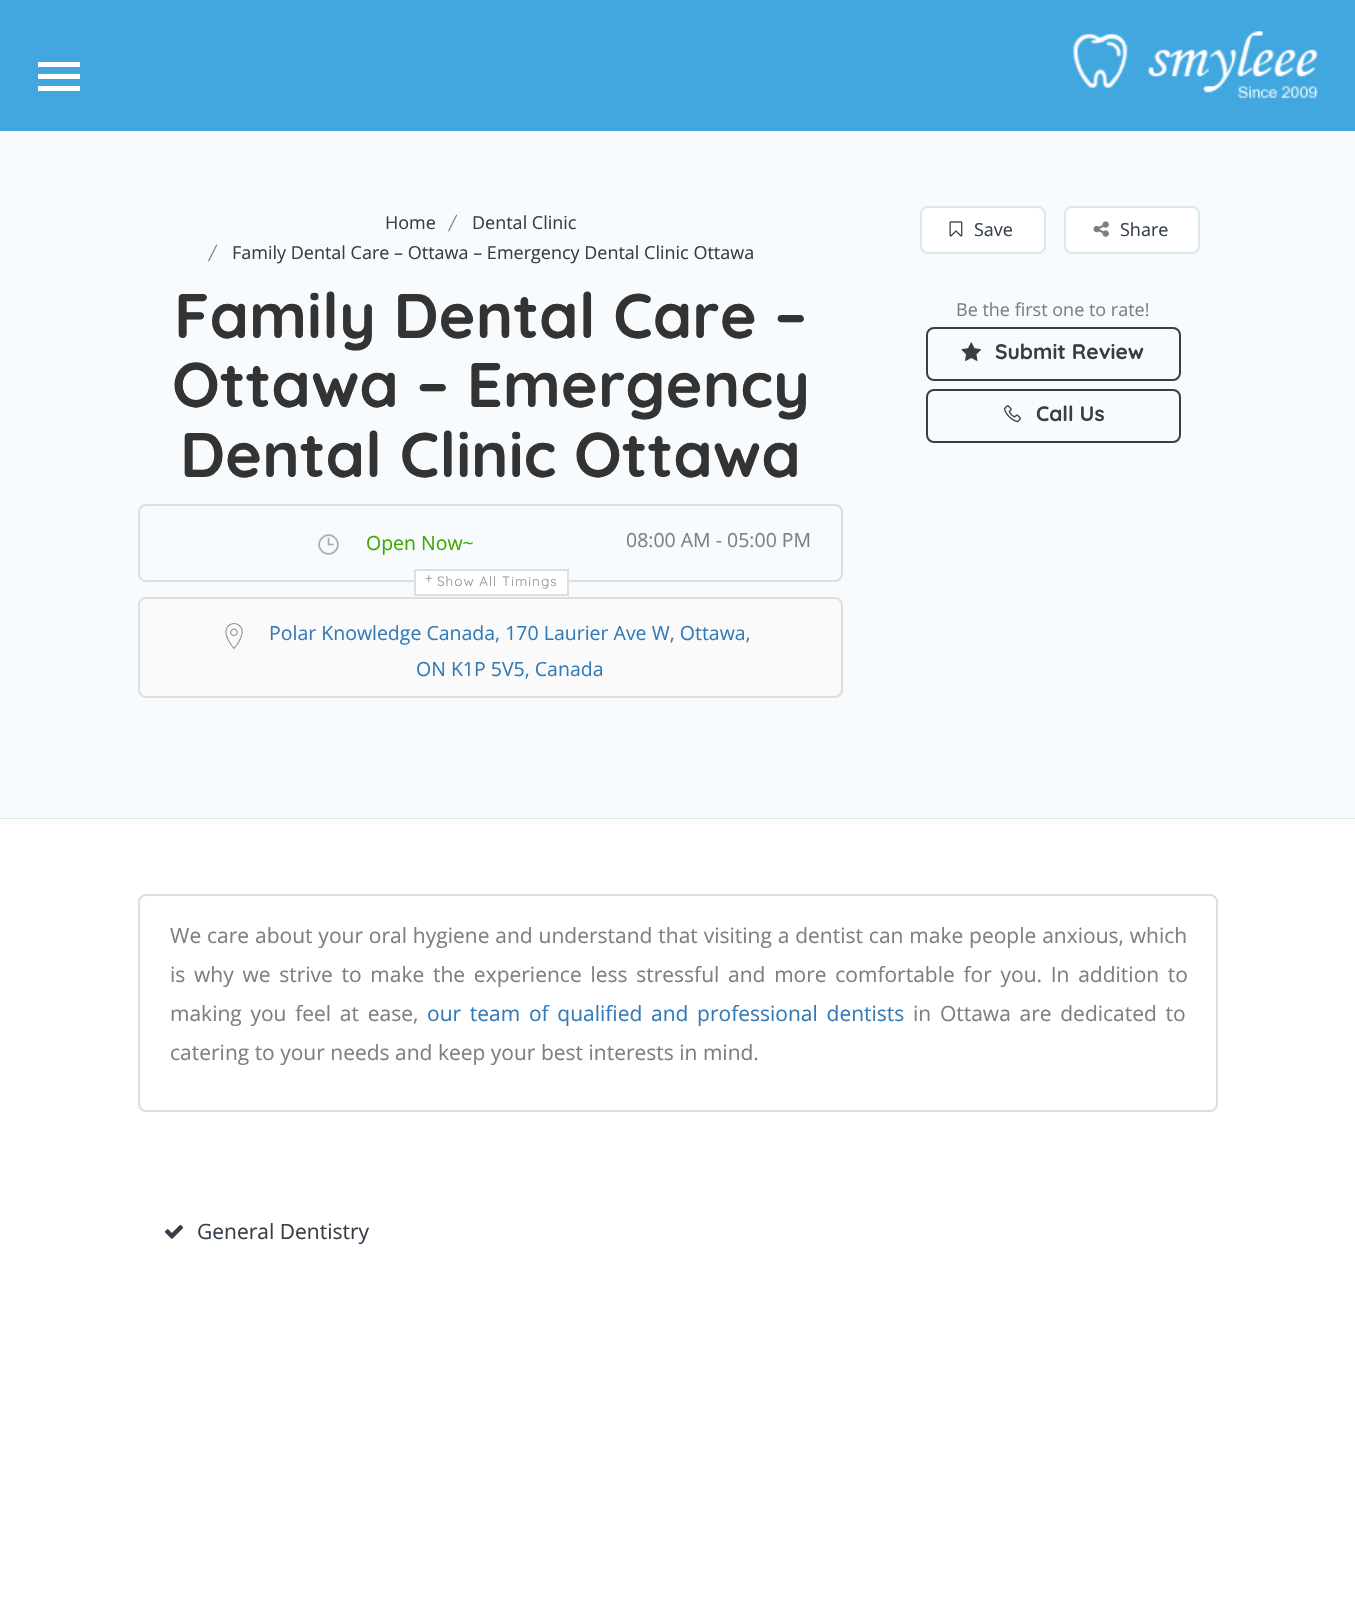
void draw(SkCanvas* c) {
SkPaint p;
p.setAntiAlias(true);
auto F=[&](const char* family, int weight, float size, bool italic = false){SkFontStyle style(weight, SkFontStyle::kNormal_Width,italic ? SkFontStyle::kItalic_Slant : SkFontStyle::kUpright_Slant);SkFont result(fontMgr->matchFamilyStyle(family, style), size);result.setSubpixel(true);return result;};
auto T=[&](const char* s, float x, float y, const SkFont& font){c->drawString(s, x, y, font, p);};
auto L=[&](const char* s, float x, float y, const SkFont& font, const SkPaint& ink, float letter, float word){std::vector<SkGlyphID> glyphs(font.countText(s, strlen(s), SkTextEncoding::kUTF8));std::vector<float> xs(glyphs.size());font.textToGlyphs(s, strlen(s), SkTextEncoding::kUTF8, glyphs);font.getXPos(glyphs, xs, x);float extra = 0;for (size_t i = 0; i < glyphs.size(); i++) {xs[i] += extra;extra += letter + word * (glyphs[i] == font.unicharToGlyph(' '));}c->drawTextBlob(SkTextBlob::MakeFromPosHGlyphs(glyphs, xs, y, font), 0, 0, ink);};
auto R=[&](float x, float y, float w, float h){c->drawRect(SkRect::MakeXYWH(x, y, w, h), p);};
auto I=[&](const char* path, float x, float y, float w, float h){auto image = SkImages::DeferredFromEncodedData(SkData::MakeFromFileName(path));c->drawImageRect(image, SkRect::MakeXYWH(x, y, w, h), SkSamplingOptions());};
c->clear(0xfff7fbfe);
p.setColor(0xff42a7df);
R(0,0,1355,131);
p.setColor(0xffffffff);
R(38,62,42,5);
R(38,74,42,5);
R(38,86,42,5);
I("1.png",1073,31,245,68);
p.setColor(0xffdbe7ef);
R(0,818,1355,1);
auto f1 = F("Open Sans",400,18);
p.setColor(0xff363f48);
T("Home",385,229,f1);
auto f2 = F("Quicksand",400,18);
p.setColor(0xff7f7f7f);
T("/",448,229,f2);
p.setColor(0xff363f48);
T("Dental Clinic",472,229,f1);
p.setColor(0xff7f7f7f);
T("/",208,259,f2);
p.setColor(0xff363f48);
T("Family Dental Care – Ottawa – Emergency Dental Clinic Ottawa",232,259,f1);
auto f3 = F("Quicksand",700,63);
p.setColor(0xff333333);
T("Family Dental Care –",174,338,f3);
T("Ottawa – Emergency",172,407,f3);
T("Dental Clinic Ottawa",180,477,f3);
p.setStroke(true);
p.setStrokeWidth(2);
p.setColor(0xffdedede);
c->drawRoundRect(SkRect::MakeXYWH(139,505,703,76),7,7,p);
I("2.png",318,534,21,21);
auto f4 = F("Open Sans",400,19.5);
p.setStroke(false);
p.setColor(0xff41a700);
T("Open Now~",366,550,f4);
p.setColor(0xff7f7f7f);
T("08:00 AM - 05:00 PM",626,547,f4);
p.setColor(0xffffffff);
c->drawRect(SkRect::MakeXYWH(415,570,153,25),p);
p.setStroke(true);
p.setColor(0xffdedede);
c->drawRect(SkRect::MakeXYWH(415,570,153,25),p);
auto f5 = F("Quicksand",400,13.5);
p.setStroke(false);
p.setColor(0xff939393);
L("+",425,583,f5,p,1,0);
L("Show All Timings",437,586,f5,p,1,0);
p.setColor(0xfffafafa);
c->drawRoundRect(SkRect::MakeXYWH(139,598,703,99),7,7,p);
p.setStroke(true);
p.setColor(0xffdedede);
c->drawRoundRect(SkRect::MakeXYWH(139,598,703,99),7,7,p);
I("3.png",225,623,18,26);
p.setStroke(false);
p.setColor(0xff337ab7);
T("Polar Knowledge Canada, 170 Laurier Ave W, Ottawa,",269,640,f4);
T("ON K1P 5V5, Canada",416,676,f4);
p.setColor(0xffffffff);
c->drawRoundRect(SkRect::MakeXYWH(921,207,124,46),7,7,p);
p.setStroke(true);
p.setColor(0xffdbe7ef);
c->drawRoundRect(SkRect::MakeXYWH(921,207,124,46),7,7,p);
I("4.png",949,221,14,16);
p.setStroke(false);
p.setColor(0xff363f48);
T("Save",974,236,f1);
p.setColor(0xffffffff);
c->drawRoundRect(SkRect::MakeXYWH(1065,207,134,46),7,7,p);
p.setStroke(true);
p.setColor(0xffdbe7ef);
c->drawRoundRect(SkRect::MakeXYWH(1065,207,134,46),7,7,p);
I("5.png",1093,221,16,16);
p.setStroke(false);
p.setColor(0xff363f48);
T("Share",1120,236,f1);
p.setColor(0xff7f7f7f);
T("Be the first one to rate!",956,316,f1);
p.setStroke(true);
p.setColor(0xff363f48);
c->drawRoundRect(SkRect::MakeXYWH(927,328,253,52),7,7,p);
I("6.png",961,342,20,19);
auto f6 = F("Quicksand",700,21);
p.setStroke(false);
T("Submit Review",995,359,f6);
p.setStroke(true);
c->drawRoundRect(SkRect::MakeXYWH(927,390,253,52),7,7,p);
I("7.png",1003,405,18,18);
p.setStroke(false);
T("Call Us",1036,421,f6);
p.setColor(0xffffffff);
R(0,819,1355,800);
p.setStroke(true);
p.setColor(0xffdedede);
c->drawRoundRect(SkRect::MakeXYWH(139,895,1078,216),7,7,p);
auto f7 = F("Open Sans",400,21);
p.setStroke(false);
p.setColor(0xff7f7f7f);
L("We care about your oral hygiene and understand that visiting a dentist can make people anxious, which",170,943,f7,p,0,.4);
L("is why we strive to make the experience less stressful and more comfortable for you. In addition to",170,982,f7,p,0,3.25);
L("making you feel at ease,",170,1021,f7,p,0,3.25);
p.setColor(0xff337ab7);
L("our team of qualified and professional dentists",427,1021,f7,p,0,3.25);
p.setColor(0xff7f7f7f);
L("in Ottawa are dedicated to",913,1021,f7,p,0,3.25);
T("catering to your needs and keep your best interests in mind.",170,1060,f7);
I("8.png",164,1224,20,15);
p.setColor(0xff363f48);
T("General Dentistry",197,1239,f7);
}
